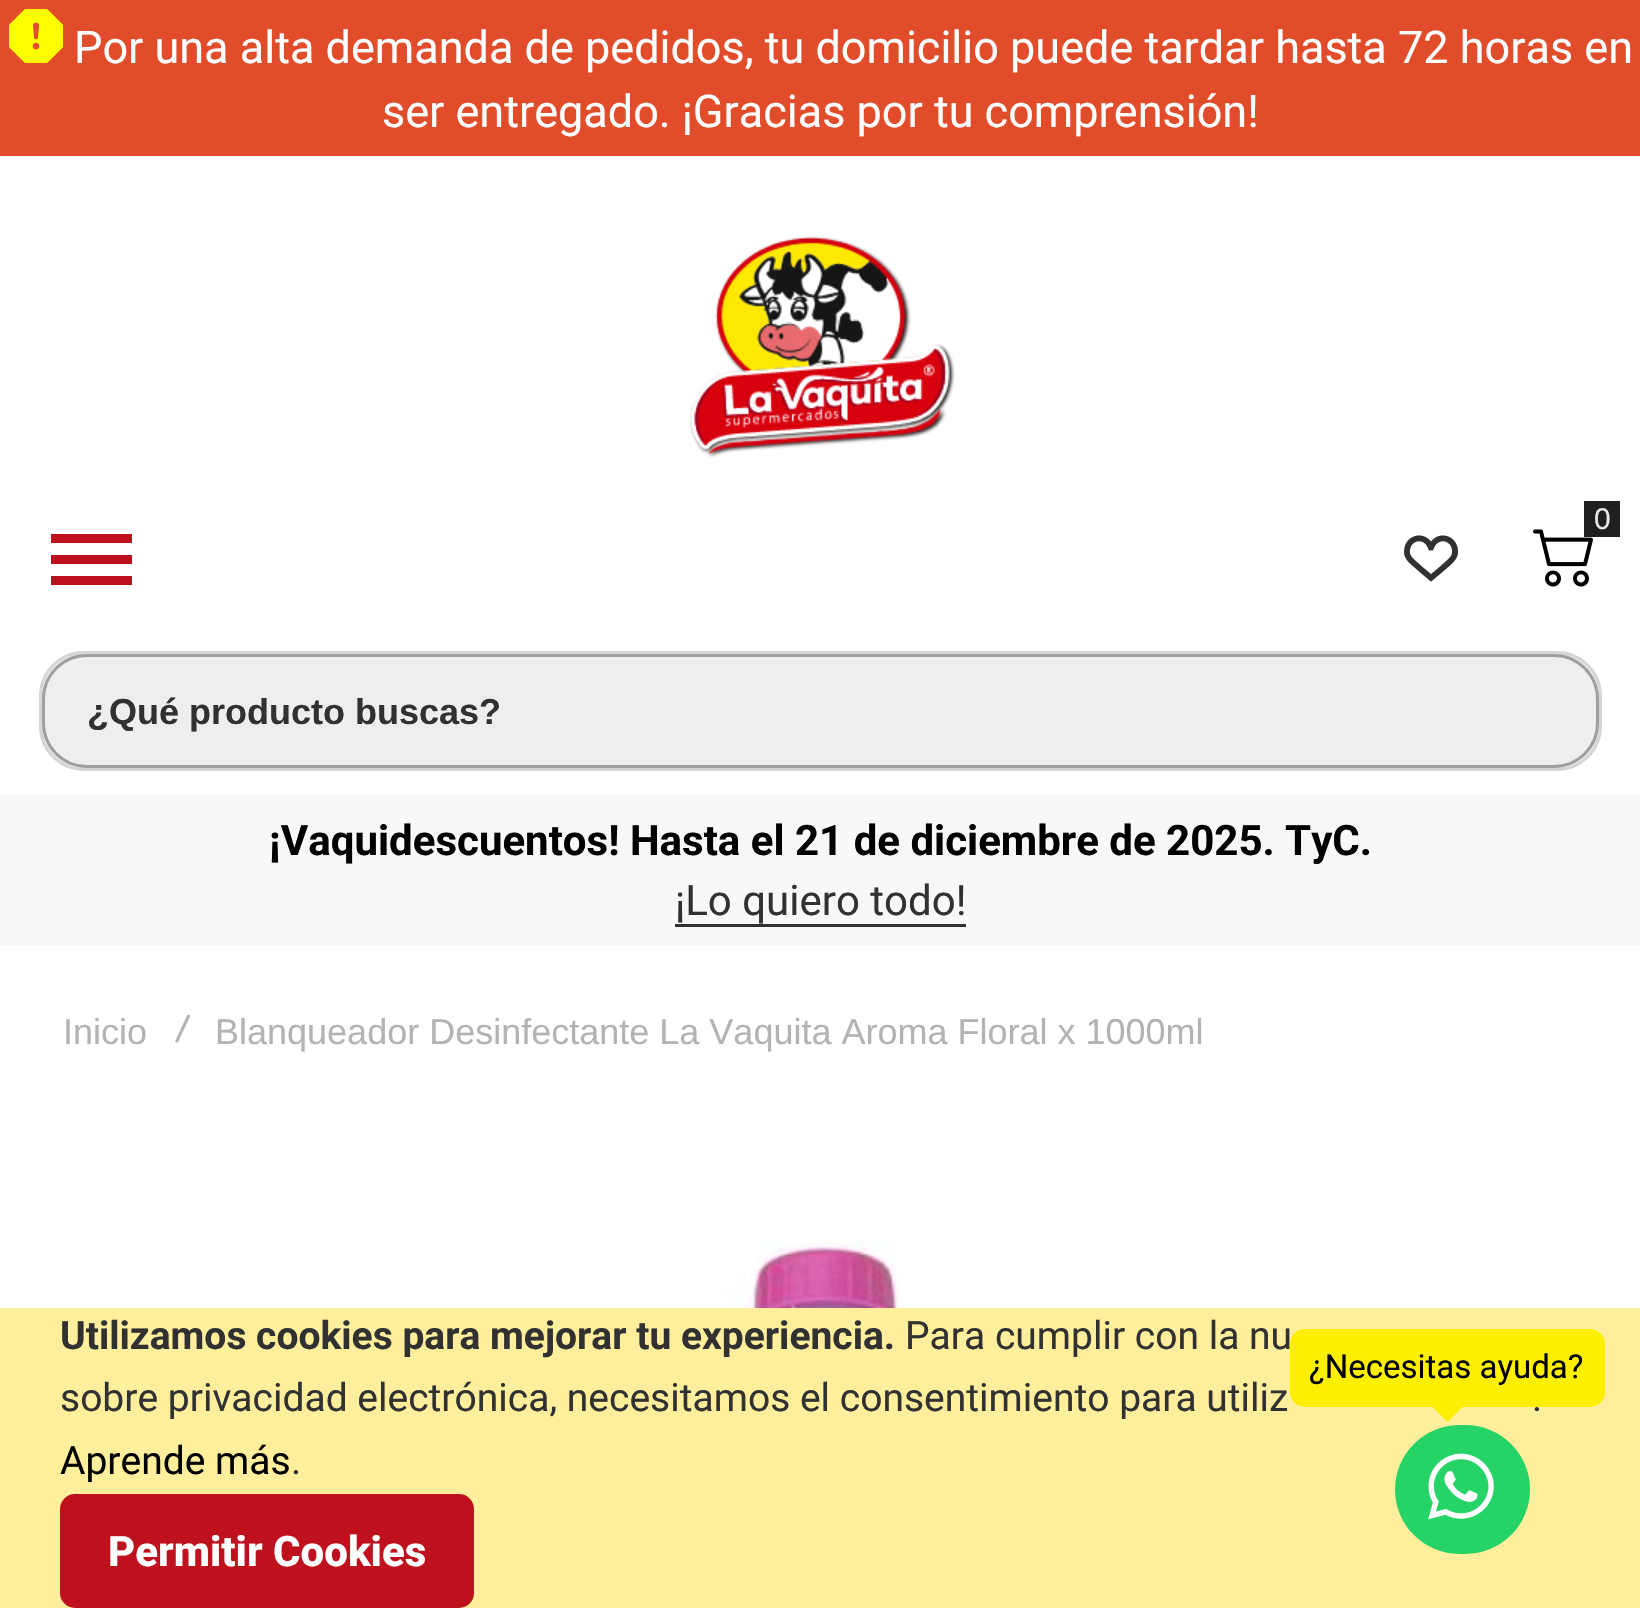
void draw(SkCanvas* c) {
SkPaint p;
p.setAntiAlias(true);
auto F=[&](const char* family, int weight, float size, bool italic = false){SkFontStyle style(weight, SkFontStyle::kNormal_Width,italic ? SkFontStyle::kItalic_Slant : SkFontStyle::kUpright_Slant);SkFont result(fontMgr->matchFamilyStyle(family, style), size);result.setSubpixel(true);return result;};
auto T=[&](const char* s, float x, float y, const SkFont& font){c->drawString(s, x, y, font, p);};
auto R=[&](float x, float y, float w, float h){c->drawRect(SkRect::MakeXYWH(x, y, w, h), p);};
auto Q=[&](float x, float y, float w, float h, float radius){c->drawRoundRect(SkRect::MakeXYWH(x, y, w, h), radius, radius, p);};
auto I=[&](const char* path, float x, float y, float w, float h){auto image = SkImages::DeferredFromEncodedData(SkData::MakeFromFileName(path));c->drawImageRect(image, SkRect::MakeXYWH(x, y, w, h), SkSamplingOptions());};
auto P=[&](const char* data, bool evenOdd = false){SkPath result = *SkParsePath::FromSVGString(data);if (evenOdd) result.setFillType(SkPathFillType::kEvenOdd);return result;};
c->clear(0xffffffff);
p.setColor(0xffe14d2a);
R(0,0,1640,156);
I("1.png",9,9,54,54);
auto f1 = F("Roboto",400,45);
p.setColor(0xffffffff);
T("Por una alta demanda de pedidos, tu domicilio puede tardar hasta 72 horas en",74,63,f1);
T("ser entregado. ¡Gracias por tu comprensión!",382,127,f1);
I("2.png",689,236,266,222);
I("3.png",1533,529,60,58);
p.setColor(0xff202020);
R(1584,501,36,36);
auto f2 = F("Liberation Sans",400,30);
p.setColor(0xffeaeaea);
T("0",1594,529,f2);
I("4.png",1404,535,55,47);
p.setColor(0xffbf101e);
R(51,534,81,9);
R(51,555,81,9);
R(51,576,81,9);
p.setColor(0xffeeeeee);
c->drawRoundRect(SkRect::MakeXYWH(40.5,652.5,1560,117),43.5,43.5,p);
p.setStroke(true);
p.setStrokeWidth(3);
p.setColor(0xffd5d5d5);
c->drawRoundRect(SkRect::MakeXYWH(40.5,652.5,1560,117),43.5,43.5,p);
p.setColor(0xff9f9f9f);
c->drawRoundRect(SkRect::MakeXYWH(43.5,655.5,1554,111),43.5,43.5,p);
auto f3 = F("Liberation Sans",700,36);
p.setStroke(false);
p.setColor(0xff313131);
T("¿Qué producto buscas?",87,724,f3);
p.setColor(0xfff8f8f8);
R(0,795,1640,150);
auto f4 = F("Roboto",700,42);
p.setColor(0xff000000);
T("¡Vaquidescuentos! Hasta el 21 de diciembre de 2025. TyC.",269,855,f4);
auto f5 = F("Roboto",400,42);
p.setColor(0xff313131);
T("¡Lo quiero todo!",675,915,f5);
R(675,924,291,3);
auto f6 = F("Liberation Sans",400,36);
p.setColor(0xffb3b3b3);
T("Inicio",63,1044,f6);
c->drawPath(P("M187.5 1014.5l3 1l-13 27.5l-2.5-1.5z"),p);
T("Blanqueador Desinfectante La Vaquita Aroma Floral x 1000ml",215,1044,f6);
I("5.png",675,1239,300,69);
p.setColor(0xffffee9c);
R(0,1308,1640,300);
p.setColor(0xfffeee00);
Q(1290,1329,315,78,15);
auto f7 = F("Roboto",400,33);
p.setColor(0xff000000);
T("¿Necesitas ayuda?",1309,1378,f7);
p.setColor(0xfffeee00);
c->drawPath(P("M1432.5 1407h30l-15 15z"),p);
p.setColor(0xff25d366);
Q(1395,1425,135,129,64.5);
I("6.png",1428,1453,66,67);
auto f8 = F("Roboto",700,39);
p.setColor(0xff313131);
T("Utilizamos cookies para mejorar tu experiencia.",60,1349,f8);
auto f9 = F("Roboto",400,39);
T("Para cumplir con la nu",905,1349,f9);
T("sobre privacidad electrónica, necesitamos el consentimiento para utiliz",60,1411,f9);
T(".",1532,1411,f9);
p.setColor(0xff000000);
T("Aprende más",60,1474,f9);
p.setColor(0xff313131);
T(".",291,1474,f9);
p.setColor(0xffbf101e);
Q(60,1494,414,114,15);
auto f10 = F("Roboto",800,42);
p.setColor(0xffffffff);
T("Permitir Cookies",108,1566,f10);
}
